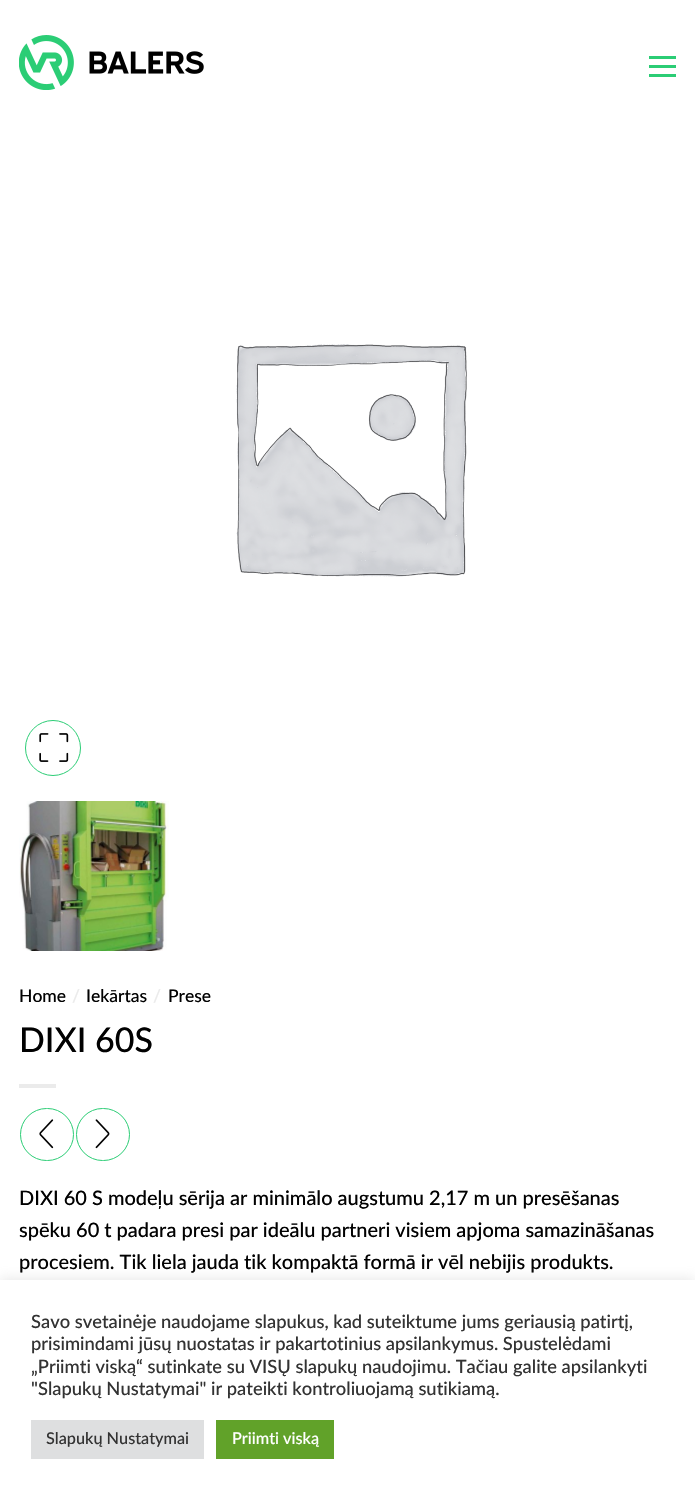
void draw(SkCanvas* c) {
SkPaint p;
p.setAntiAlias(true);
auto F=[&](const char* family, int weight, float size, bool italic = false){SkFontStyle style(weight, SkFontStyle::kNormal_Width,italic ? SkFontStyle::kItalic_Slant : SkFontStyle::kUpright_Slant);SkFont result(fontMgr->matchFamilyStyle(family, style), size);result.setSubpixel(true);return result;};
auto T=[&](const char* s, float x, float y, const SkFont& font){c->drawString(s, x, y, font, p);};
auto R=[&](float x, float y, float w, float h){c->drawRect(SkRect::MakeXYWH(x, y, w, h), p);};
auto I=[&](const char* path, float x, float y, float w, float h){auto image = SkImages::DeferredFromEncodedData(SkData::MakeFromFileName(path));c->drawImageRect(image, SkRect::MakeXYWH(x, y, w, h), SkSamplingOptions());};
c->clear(0xffffffff);
I("1.png",19,35,185,55);
p.setColor(0xff2bcd75);
R(649,56,27,3);
R(649,65,27,3);
R(649,74,27,3);
I("2.png",236,344,231,233);
p.setStroke(true);
p.setStrokeWidth(1);
c->drawCircle(53,748,27.5,p);
I("3.png",39,733,30,29);
I("4.png",19,801,150,150);
auto f1 = F("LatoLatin",500,17.5);
p.setStroke(false);
p.setColor(0xff010101);
T("Home",19,1002,f1);
p.setColor(0xffebebeb);
T("/",72,1002,f1);
p.setColor(0xff010101);
T("Iekārtas",86,1002,f1);
p.setColor(0xffebebeb);
T("/",153,1002,f1);
p.setColor(0xff010101);
T("Prese",168,1002,f1);
auto f2 = F("LatoLatin",500,34);
T("DIXI 60S",19,1052,f2);
p.setColor(0xffebebeb);
R(19,1084,37,4);
p.setStroke(true);
p.setColor(0xff2bcd75);
c->drawRoundRect(SkRect::MakeXYWH(20.5,1108.5,53,52),26,26,p);
I("5.png",39,1119,15,30);
c->drawRoundRect(SkRect::MakeXYWH(76.5,1108.5,53,52),26,26,p);
I("6.png",95,1119,15,30);
auto f3 = F("LatoLatin",500,20);
p.setStroke(false);
p.setColor(0xff010101);
T("DIXI 60 S modeļu sērija ar minimālo augstumu 2,17 m un presēšanas",19,1205,f3);
T("spēku 60 t padara presi par ideālu partneri visiem apjoma samazināšanas",19,1237,f3);
T("procesiem. Tik liela jauda tik kompaktā formā ir vēl nebijis produkts.",19,1269,f3);
p.setColor(0x4dacabab);
p.setMaskFilter(SkMaskFilter::MakeBlur(kNormal_SkBlurStyle, 6));
c->drawRect(SkRect::MakeXYWH(0,1279,695,216),p);
p.setMaskFilter(nullptr);
p.setColor(0xffffffff);
R(0,1280,695,216);
auto f4 = F("LatoLatin",500,18.35);
p.setColor(0xff333333);
T("Savo svetainėje naudojame slapukus, kad suteiktume jums geriausią patirtį,",31,1328,f4);
T("prisimindami jūsų nuostatas ir pakartotinius apsilankymus. Spustelėdami",31,1350,f4);
T("„Priimti viską“ sutinkate su VISŲ slapukų naudojimu. Tačiau galite apsilankyti",31,1373,f4);
T("\"Slapukų Nustatymai\" ir pateikti kontroliuojamą sutikiamą.",31,1395,f4);
p.setColor(0xffdedfe0);
R(31,1420,173,39);
auto f5 = F("LatoLatin",500,16.25);
p.setColor(0xff333333);
T("Slapukų Nustatymai",46,1444,f5);
p.setColor(0xff61a229);
R(216,1420,118,39);
p.setColor(0xffffffff);
T("Priimti viską",232,1444,f5);
}
